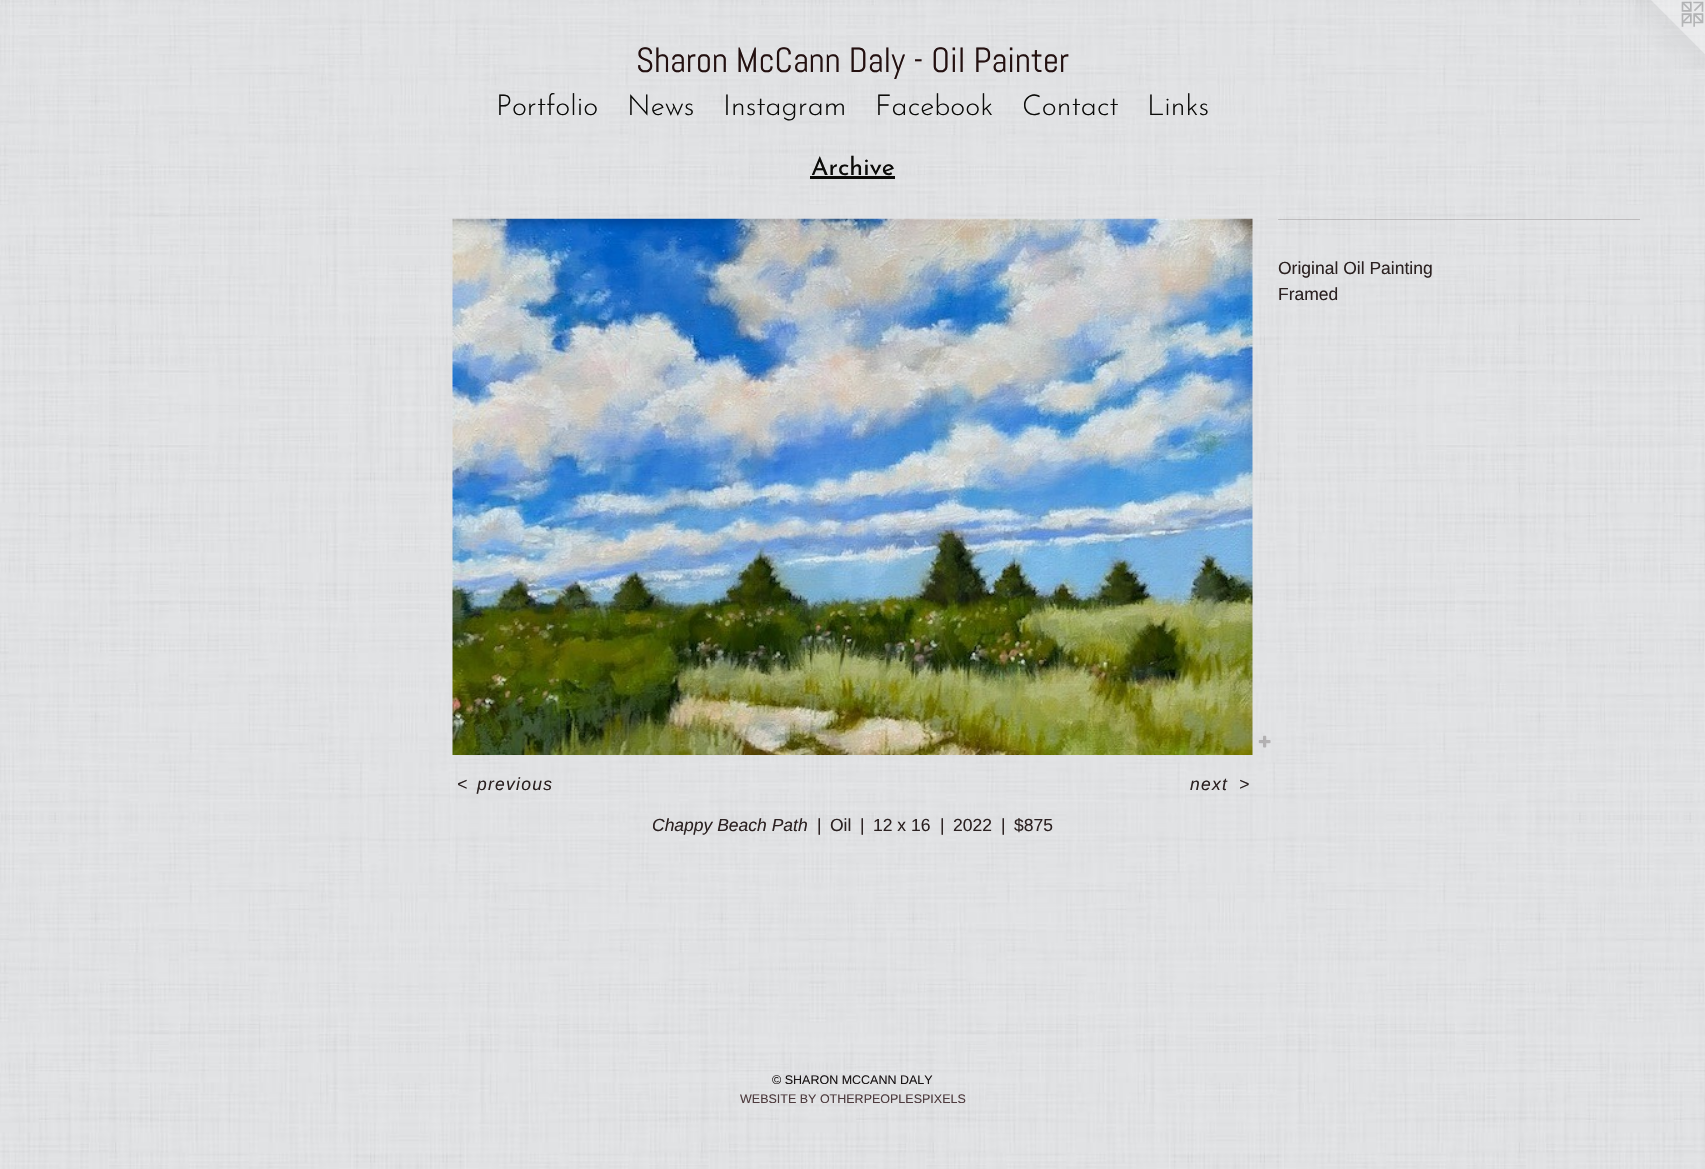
void draw(SkCanvas* c) {
SkPaint p;
p.setAntiAlias(true);
auto F=[&](const char* family, int weight, float size, bool italic = false){SkFontStyle style(weight, SkFontStyle::kNormal_Width,italic ? SkFontStyle::kItalic_Slant : SkFontStyle::kUpright_Slant);SkFont result(fontMgr->matchFamilyStyle(family, style), size);result.setSubpixel(true);return result;};
auto T=[&](const char* s, float x, float y, const SkFont& font){c->drawString(s, x, y, font, p);};
auto L=[&](const char* s, float x, float y, const SkFont& font, const SkPaint& ink, float letter, float word){std::vector<SkGlyphID> glyphs(font.countText(s, strlen(s), SkTextEncoding::kUTF8));std::vector<float> xs(glyphs.size());font.textToGlyphs(s, strlen(s), SkTextEncoding::kUTF8, glyphs);font.getXPos(glyphs, xs, x);float extra = 0;for (size_t i = 0; i < glyphs.size(); i++) {xs[i] += extra;extra += letter + word * (glyphs[i] == font.unicharToGlyph(' '));}c->drawTextBlob(SkTextBlob::MakeFromPosHGlyphs(glyphs, xs, y, font), 0, 0, ink);};
auto R=[&](float x, float y, float w, float h){c->drawRect(SkRect::MakeXYWH(x, y, w, h), p);};
auto I=[&](const char* path, float x, float y, float w, float h){auto image = SkImages::DeferredFromEncodedData(SkData::MakeFromFileName(path));c->drawImageRect(image, SkRect::MakeXYWH(x, y, w, h), SkSamplingOptions());};
c->clear(0xffffffff);
I("1.png",0,0,1705,1169);
auto f1 = F("Abel",400,35);
p.setColor(0xff231010);
T("Sharon McCann Daly - Oil Painter",636,72,f1);
I("2.png",1635,0,70,70);
auto f2 = F("Josefin Sans",100,28.75);
p.setColor(0xff0b0b09);
T("Portfolio",496,115,f2);
T("News",627,115,f2);
T("Instagram",723,115,f2);
T("Facebook",875,115,f2);
T("Contact",1022,115,f2);
T("Links",1147,115,f2);
auto f3 = F("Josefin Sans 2",100,25);
T("Archive",811,175,f3);
R(810,176,85,3);
p.setColor(0x332b2121);
R(1278,219,362,1);
auto f4 = F("Liberation Sans",400,17.5);
p.setColor(0xff2b2121);
T("Original Oil Painting",1278,274,f4);
T("Framed",1278,300,f4);
I("3.png",452,218,801,537);
I("4.png",1258,735,13,13);
auto f5 = F("Liberation Sans",400,17.5,true);
L("<",457,790,f5,p,1.25,0);
L("previous",477,790,f5,p,1.25,0);
L("next",1190,790,f5,p,1.25,0);
L(">",1239,790,f5,p,1.25,0);
T("Chappy Beach Path",652,831,f5);
T("|",817,831,f4);
T("Oil",830,831,f4);
T("|",860,831,f4);
T("12 x 16",873,831,f4);
T("|",940,831,f4);
T("2022",953,831,f4);
T("|",1001,831,f4);
T("$875",1014,831,f4);
auto f6 = F("Liberation Sans",400,12.5);
p.setColor(0xff191415);
T("© SHARON MCCANN DALY",772,1084,f6);
p.setColor(0xff4e3b3e);
T("WEBSITE BY OTHERPEOPLESPIXELS",740,1103,f6);
}
